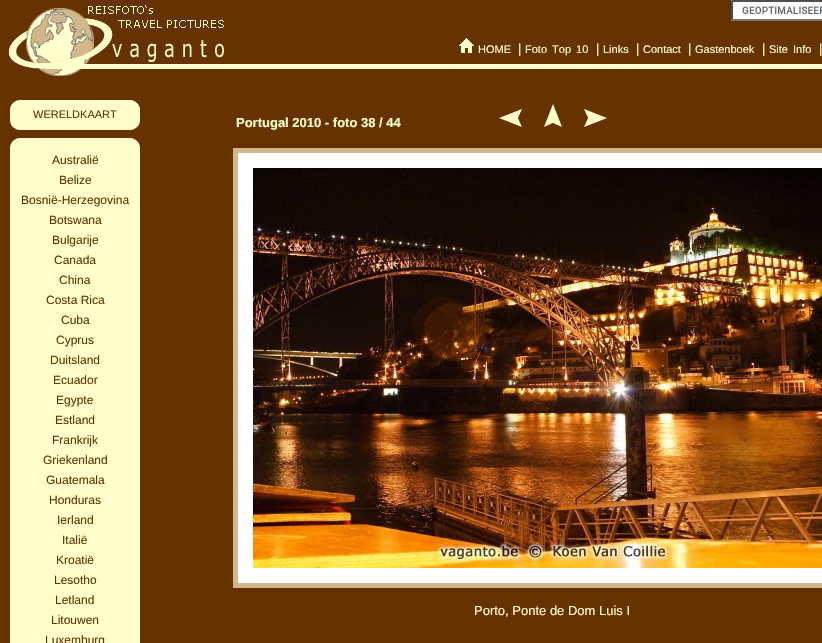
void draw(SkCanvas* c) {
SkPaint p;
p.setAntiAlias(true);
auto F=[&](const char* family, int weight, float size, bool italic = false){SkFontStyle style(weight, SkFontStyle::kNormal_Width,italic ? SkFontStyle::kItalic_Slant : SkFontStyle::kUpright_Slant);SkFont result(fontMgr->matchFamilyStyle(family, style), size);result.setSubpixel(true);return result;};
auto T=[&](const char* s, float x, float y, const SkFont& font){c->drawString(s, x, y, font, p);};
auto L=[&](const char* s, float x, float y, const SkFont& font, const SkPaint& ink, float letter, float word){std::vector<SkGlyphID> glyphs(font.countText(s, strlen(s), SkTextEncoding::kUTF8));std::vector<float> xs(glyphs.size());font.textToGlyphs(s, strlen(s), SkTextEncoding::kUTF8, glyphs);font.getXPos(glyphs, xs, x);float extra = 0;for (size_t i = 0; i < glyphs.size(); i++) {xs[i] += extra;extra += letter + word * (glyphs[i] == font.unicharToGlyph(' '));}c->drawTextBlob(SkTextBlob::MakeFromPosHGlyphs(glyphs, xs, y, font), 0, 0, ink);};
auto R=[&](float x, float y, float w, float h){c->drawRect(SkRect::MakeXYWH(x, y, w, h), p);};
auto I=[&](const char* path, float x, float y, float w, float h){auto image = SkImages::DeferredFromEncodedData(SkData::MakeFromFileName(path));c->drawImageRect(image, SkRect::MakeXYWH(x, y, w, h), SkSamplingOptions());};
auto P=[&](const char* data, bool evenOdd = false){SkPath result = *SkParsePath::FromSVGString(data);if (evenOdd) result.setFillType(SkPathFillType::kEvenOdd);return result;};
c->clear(0xff663300);
I("1.png",8,5,814,71);
p.setColor(0xffffffff);
R(731,0,91,21);
I("2.png",742,6,80,8);
p.setColor(0xff4f4f4f);
c->drawPath(P("M731 0h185l-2 2h-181z"),p);
p.setColor(0xff767676);
c->drawPath(P("M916 21h-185l2-2h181z"),p);
p.setColor(0xff4f4f4f);
c->drawPath(P("M731 21v-21l2 2v17z"),p);
I("3.png",459,38,15,15);
auto f1 = F("Liberation Sans",400,11);
p.setColor(0xffffffcc);
T("HOME",478,53,f1);
auto f2 = F("Liberation Sans",400,13);
T("|",518,53,f2);
L("Foto Top 10",525,53,f1,p,0,2);
T("|",596,53,f2);
T("Links",603,53,f1);
T("|",636,53,f2);
T("Contact",643,53,f1);
T("|",688,53,f2);
T("Gastenboek",695,53,f1);
T("|",762,53,f2);
L("Site Info",769,53,f1,p,0,2);
T("|",819,53,f2);
I("4.png",10,100,130,30);
p.setColor(0xff663300);
T("WERELDKAART",33,118,f1);
I("5.png",10,138,130,12);
p.setColor(0xffffffcc);
R(10,150,130,493);
auto f3 = F("Liberation Sans",400,12);
p.setColor(0xff663300);
T("Australië",52,164,f3);
T("Belize",59,184,f3);
T("Bosnië-Herzegovina",21,204,f3);
T("Botswana",49,224,f3);
T("Bulgarije",52,244,f3);
T("Canada",54,264,f3);
T("China",59,284,f3);
T("Costa Rica",46,304,f3);
T("Cuba",61,324,f3);
T("Cyprus",56,344,f3);
T("Duitsland",50,364,f3);
T("Ecuador",53,384,f3);
T("Egypte",56,404,f3);
T("Estland",55,424,f3);
T("Frankrijk",52,444,f3);
T("Griekenland",43,464,f3);
T("Guatemala",46,484,f3);
T("Honduras",49,504,f3);
T("Ierland",57,524,f3);
T("Italië",62,544,f3);
T("Kroatië",56,564,f3);
T("Lesotho",54,584,f3);
T("Letland",55,604,f3);
T("Litouwen",51,624,f3);
T("Luxemburg",45,644,f3);
auto f4 = F("Liberation Sans",700,13);
p.setColor(0xffffffcc);
T("Portugal 2010 - foto 38 / 44",236,127,f4);
I("6.png",499,109,23,18);
I("7.png",544,104,18,23);
I("8.png",584,109,23,18);
p.setColor(0xffffffff);
c->drawRect(SkRect::MakeXYWH(235.5,150.5,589,435),p);
p.setStroke(true);
p.setStrokeWidth(5);
p.setColor(0xffd2b78c);
c->drawRect(SkRect::MakeXYWH(235.5,150.5,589,435),p);
I("9.png",253,168,569,400);
p.setStroke(false);
p.setColor(0xffffffcc);
T("Porto, Ponte de Dom Luis I",474,615,f2);
}
